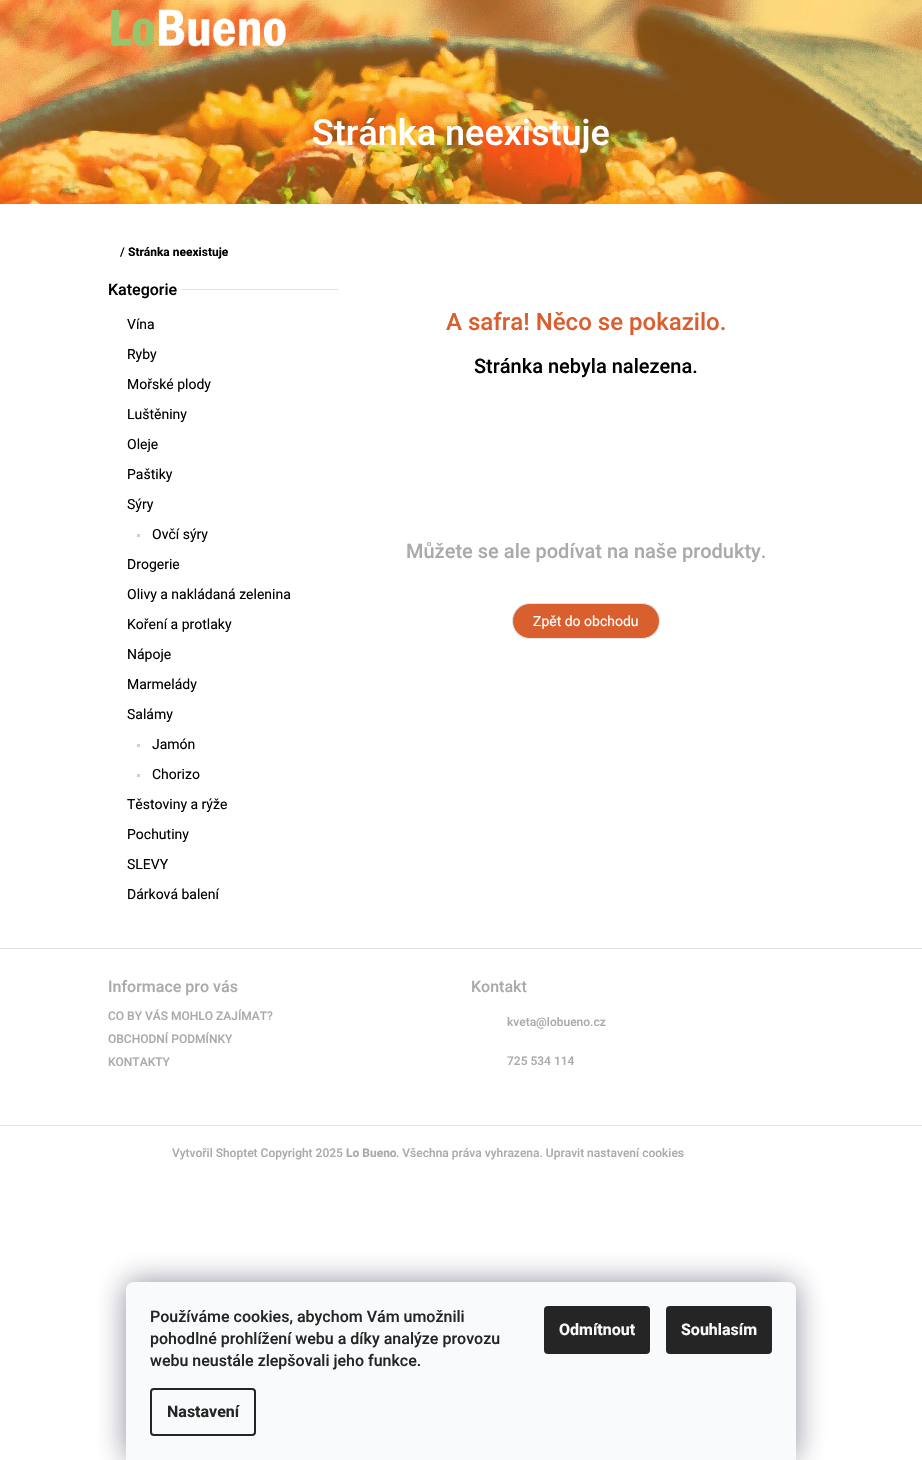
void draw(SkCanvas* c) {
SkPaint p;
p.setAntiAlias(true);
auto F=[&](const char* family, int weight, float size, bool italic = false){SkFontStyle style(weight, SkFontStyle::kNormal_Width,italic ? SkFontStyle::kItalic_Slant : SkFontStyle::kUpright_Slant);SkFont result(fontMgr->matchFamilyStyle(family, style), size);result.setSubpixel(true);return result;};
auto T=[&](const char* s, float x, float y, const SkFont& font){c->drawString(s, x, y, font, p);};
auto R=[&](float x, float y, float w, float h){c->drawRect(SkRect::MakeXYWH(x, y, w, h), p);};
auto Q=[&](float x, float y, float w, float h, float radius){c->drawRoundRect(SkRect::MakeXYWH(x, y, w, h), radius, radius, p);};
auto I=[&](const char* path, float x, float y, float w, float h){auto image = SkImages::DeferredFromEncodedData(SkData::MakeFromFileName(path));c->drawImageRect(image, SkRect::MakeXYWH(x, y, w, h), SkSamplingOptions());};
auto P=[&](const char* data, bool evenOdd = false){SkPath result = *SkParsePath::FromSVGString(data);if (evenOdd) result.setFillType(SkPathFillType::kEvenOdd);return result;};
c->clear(0xffffffff);
I("1.png",0,0,922,204);
I("2.png",111,9,175,38);
auto f1 = F("Roboto",500,36);
p.setColor(0xffffffff);
T("Stránka neexistuje",312,145,f1);
auto f2 = F("Roboto",500,12);
p.setColor(0xff000000);
T("/",120,256,f2);
auto f3 = F("Roboto",700,12);
T("Stránka neexistuje",128,256,f3);
auto f4 = F("Roboto",500,16);
T("Kategorie",108,295,f4);
p.setColor(0xffe3e3e3);
R(182,289,156,1);
auto f5 = F("Roboto",400,14);
p.setColor(0xff000000);
T("Vína",127,329,f5);
T("Ryby",127,359,f5);
T("Mořské plody",127,389,f5);
T("Luštěniny",127,419,f5);
T("Oleje",127,449,f5);
T("Paštiky",127,479,f5);
T("Sýry",127,509,f5);
p.setColor(0xffcfcfcf);
R(137,534,3,3);
p.setColor(0xff000000);
T("Ovčí sýry",152,539,f5);
T("Drogerie",127,569,f5);
T("Olivy a nakládaná zelenina",127,599,f5);
T("Koření a protlaky",127,629,f5);
T("Nápoje",127,659,f5);
T("Marmelády",127,689,f5);
T("Salámy",127,719,f5);
p.setColor(0xffcfcfcf);
R(137,744,3,3);
p.setColor(0xff000000);
T("Jamón",152,749,f5);
p.setColor(0xffcfcfcf);
R(137,774,3,3);
p.setColor(0xff000000);
T("Chorizo",152,779,f5);
T("Těstoviny a rýže",127,809,f5);
T("Pochutiny",127,839,f5);
T("SLEVY",127,869,f5);
T("Dárková balení",127,899,f5);
auto f6 = F("Roboto",500,24);
p.setColor(0xffda5f2f);
T("A safra! Něco se pokazilo.",446,330,f6);
auto f7 = F("Roboto",500,20);
p.setColor(0xff000000);
T("Stránka nebyla nalezena.",474,373,f7);
p.setColor(0xffaaaaaa);
T("Můžete se ale podívat na naše produkty.",406,558,f7);
p.setColor(0xffda5f2f);
c->drawRoundRect(SkRect::MakeXYWH(512.5,603.5,147,35),17.5,17.5,p);
p.setStroke(true);
p.setStrokeWidth(1);
p.setColor(0xffe3e3e3);
c->drawRoundRect(SkRect::MakeXYWH(512.5,603.5,147,35),17.5,17.5,p);
p.setStroke(false);
p.setColor(0xffffffff);
T("Zpět do obchodu",533,626,f5);
p.setColor(0xffe3e3e3);
R(0,948,922,1);
p.setColor(0xffaaaaaa);
T("Informace pro vás",108,992,f4);
T("CO BY VÁS MOHLO ZAJÍMAT?",108,1020,f2);
T("OBCHODNÍ PODMÍNKY",108,1043,f2);
T("KONTAKTY",108,1066,f2);
T("Kontakt",471,992,f4);
T("kveta@lobueno.cz",507,1026,f2);
T("725 534 114",507,1065,f2);
p.setColor(0xffe3e3e3);
R(0,1125,922,1);
p.setColor(0xffaaaaaa);
T("Vytvořil Shoptet Copyright 2025",172,1157,f2);
T("Lo Bueno",346,1157,f3);
T(". Všechna práva vyhrazena. Upravit nastavení cookies",396,1157,f2);
p.setColor(0x801b1939);
p.setMaskFilter(SkMaskFilter::MakeBlur(kNormal_SkBlurStyle, 15));
c->drawRoundRect(SkRect::MakeXYWH(126,1282,670,178),8,8,p);
p.setMaskFilter(nullptr);
p.setColor(0xfff8fafb);
c->drawPath(P("M134 1282h654c4.5 0 8 3.5 8 8v170h-670v-170c0-4.5 3.5-8 8-8z"),p);
p.setColor(0xff252525);
T("Používáme cookies, abychom Vám umožnili",150,1322,f4);
T("pohodlné prohlížení webu a díky analýze provozu",150,1344,f4);
T("webu neustále zlepšovali jeho funkce.",150,1366,f4);
p.setStroke(true);
p.setStrokeWidth(2);
c->drawRoundRect(SkRect::MakeXYWH(151,1389,104,46),3,3,p);
auto f8 = F("Roboto",700,16);
p.setStroke(false);
T("Nastavení",167,1417,f8);
Q(544,1306,106,48,4);
p.setColor(0xfff8fafb);
T("Odmítnout",559,1335,f8);
p.setColor(0xff252525);
Q(666,1306,106,48,4);
p.setColor(0xfff8fafb);
T("Souhlasím",681,1335,f8);
}
